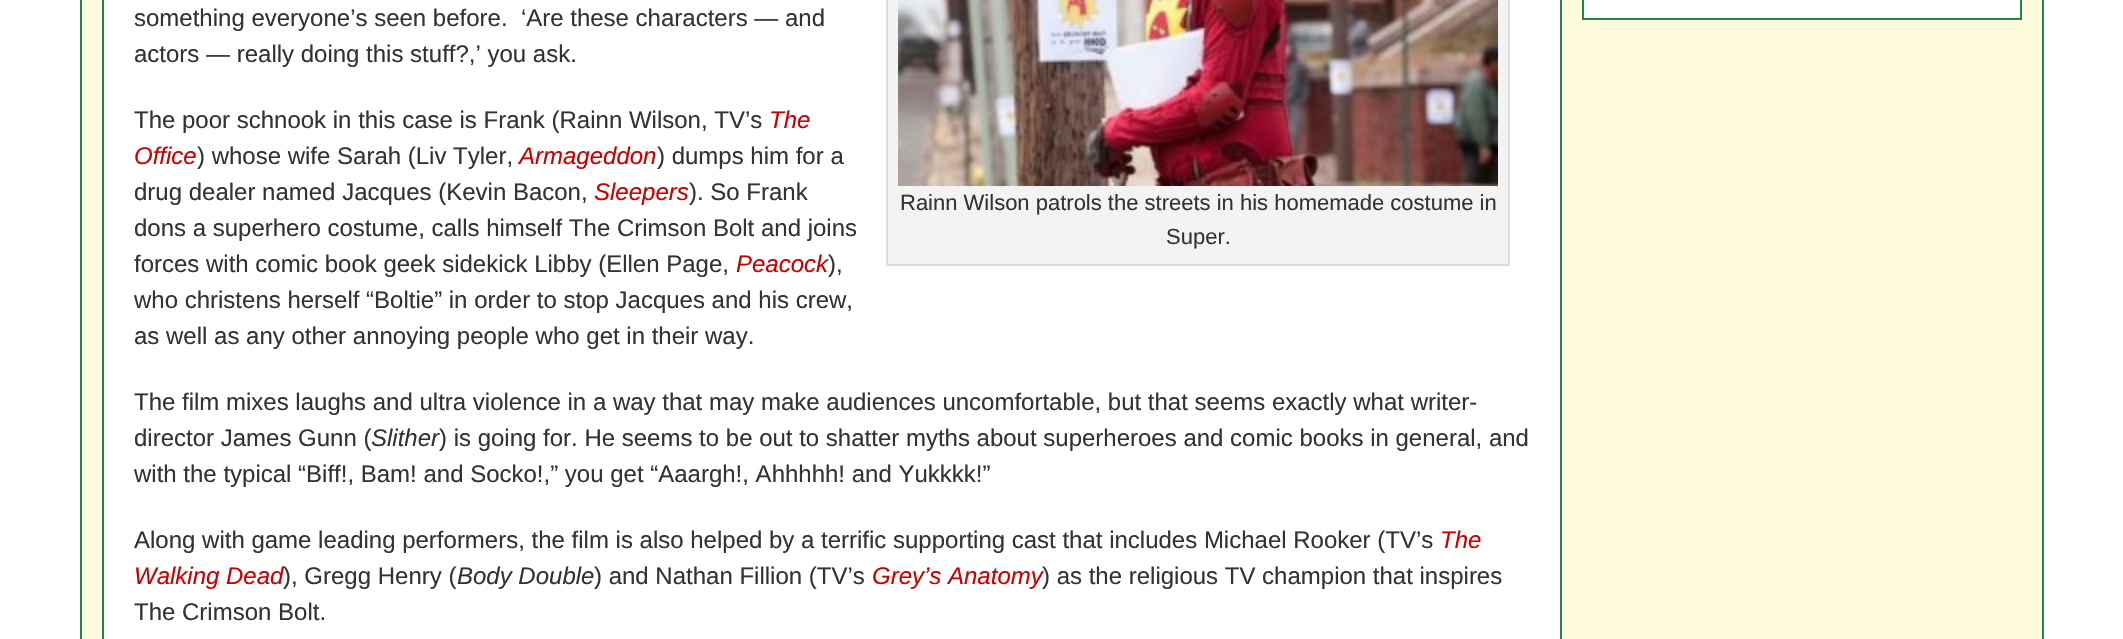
void draw(SkCanvas* c) {
SkPaint p;
p.setAntiAlias(true);
auto F=[&](const char* family, int weight, float size, bool italic = false){SkFontStyle style(weight, SkFontStyle::kNormal_Width,italic ? SkFontStyle::kItalic_Slant : SkFontStyle::kUpright_Slant);SkFont result(fontMgr->matchFamilyStyle(family, style), size);result.setSubpixel(true);return result;};
auto T=[&](const char* s, float x, float y, const SkFont& font){c->drawString(s, x, y, font, p);};
auto I=[&](const char* path, float x, float y, float w, float h){auto image = SkImages::DeferredFromEncodedData(SkData::MakeFromFileName(path));c->drawImageRect(image, SkRect::MakeXYWH(x, y, w, h), SkSamplingOptions());};
c->clear(0xffffffff);
p.setColor(0xfffefcdd);
c->drawRect(SkRect::MakeXYWH(81,-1,1962,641),p);
p.setStroke(true);
p.setStrokeWidth(2);
p.setColor(0xff248150);
c->drawRect(SkRect::MakeXYWH(81,-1,1962,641),p);
p.setStroke(false);
p.setColor(0xffffffff);
c->drawRect(SkRect::MakeXYWH(103,-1,1458,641),p);
p.setStroke(true);
p.setColor(0xff248150);
c->drawRect(SkRect::MakeXYWH(103,-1,1458,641),p);
auto f1 = F("Liberation Sans",400,24);
p.setStroke(false);
p.setColor(0xff333333);
T("something everyone’s seen before.  ‘Are these characters — and",134,26,f1);
T("actors — really doing this stuff?,’ you ask.",134,62,f1);
T("The poor schnook in this case is Frank (Rainn Wilson, TV’s",134,128,f1);
auto f2 = F("Liberation Sans",400,24,true);
p.setColor(0xffcc0000);
T("The",769,128,f2);
T("Office",134,164,f2);
p.setColor(0xff333333);
T(") whose wife Sarah (Liv Tyler,",197,164,f1);
p.setColor(0xffcc0000);
T("Armageddon",519,164,f2);
p.setColor(0xff333333);
T(") dumps him for a",657,164,f1);
T("drug dealer named Jacques (Kevin Bacon,",134,200,f1);
p.setColor(0xffcc0000);
T("Sleepers",594,200,f2);
p.setColor(0xff333333);
T("). So Frank",689,200,f1);
T("dons a superhero costume, calls himself The Crimson Bolt and joins",134,236,f1);
T("forces with comic book geek sidekick Libby (Ellen Page,",134,272,f1);
p.setColor(0xffcc0000);
T("Peacock",736,272,f2);
p.setColor(0xff333333);
T("),",828,272,f1);
T("who christens herself “Boltie” in order to stop Jacques and his crew,",134,308,f1);
T("as well as any other annoying people who get in their way.",134,344,f1);
p.setColor(0xfff3f3f3);
c->drawRect(SkRect::MakeXYWH(887,-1,622,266),p);
p.setStroke(true);
p.setColor(0xffdddddd);
c->drawRect(SkRect::MakeXYWH(887,-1,622,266),p);
I("1.png",898,0,600,186);
auto f3 = F("Liberation Sans",400,22);
p.setStroke(false);
p.setColor(0xff333333);
T("Rainn Wilson patrols the streets in his homemade costume in",900,210,f3);
T("Super.",1166,244,f3);
T("The film mixes laughs and ultra violence in a way that may make audiences uncomfortable, but that seems exactly what writer-",134,410,f1);
T("director James Gunn (",134,446,f1);
T("Slither",371,446,f2);
T(") is going for. He seems to be out to shatter myths about superheroes and comic books in general, and",439,446,f1);
T("with the typical “Biff!, Bam! and Socko!,” you get “Aaargh!, Ahhhhh! and Yukkkk!”",134,482,f1);
T("Along with game leading performers, the film is also helped by a terrific supporting cast that includes Michael Rooker (TV’s",134,548,f1);
p.setColor(0xffcc0000);
T("The",1440,548,f2);
T("Walking Dead",134,584,f2);
p.setColor(0xff333333);
T("), Gregg Henry (",283,584,f1);
T("Body Double",457,584,f2);
T(") and Nathan Fillion (TV’s",594,584,f1);
p.setColor(0xffcc0000);
T("Grey’s Anatomy",872,584,f2);
p.setColor(0xff333333);
T(") as the religious TV champion that inspires",1042,584,f1);
T("The Crimson Bolt.",134,620,f1);
p.setColor(0xffffffff);
c->drawRect(SkRect::MakeXYWH(1583,-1,438,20),p);
p.setStroke(true);
p.setColor(0xff248150);
c->drawRect(SkRect::MakeXYWH(1583,-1,438,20),p);
}
